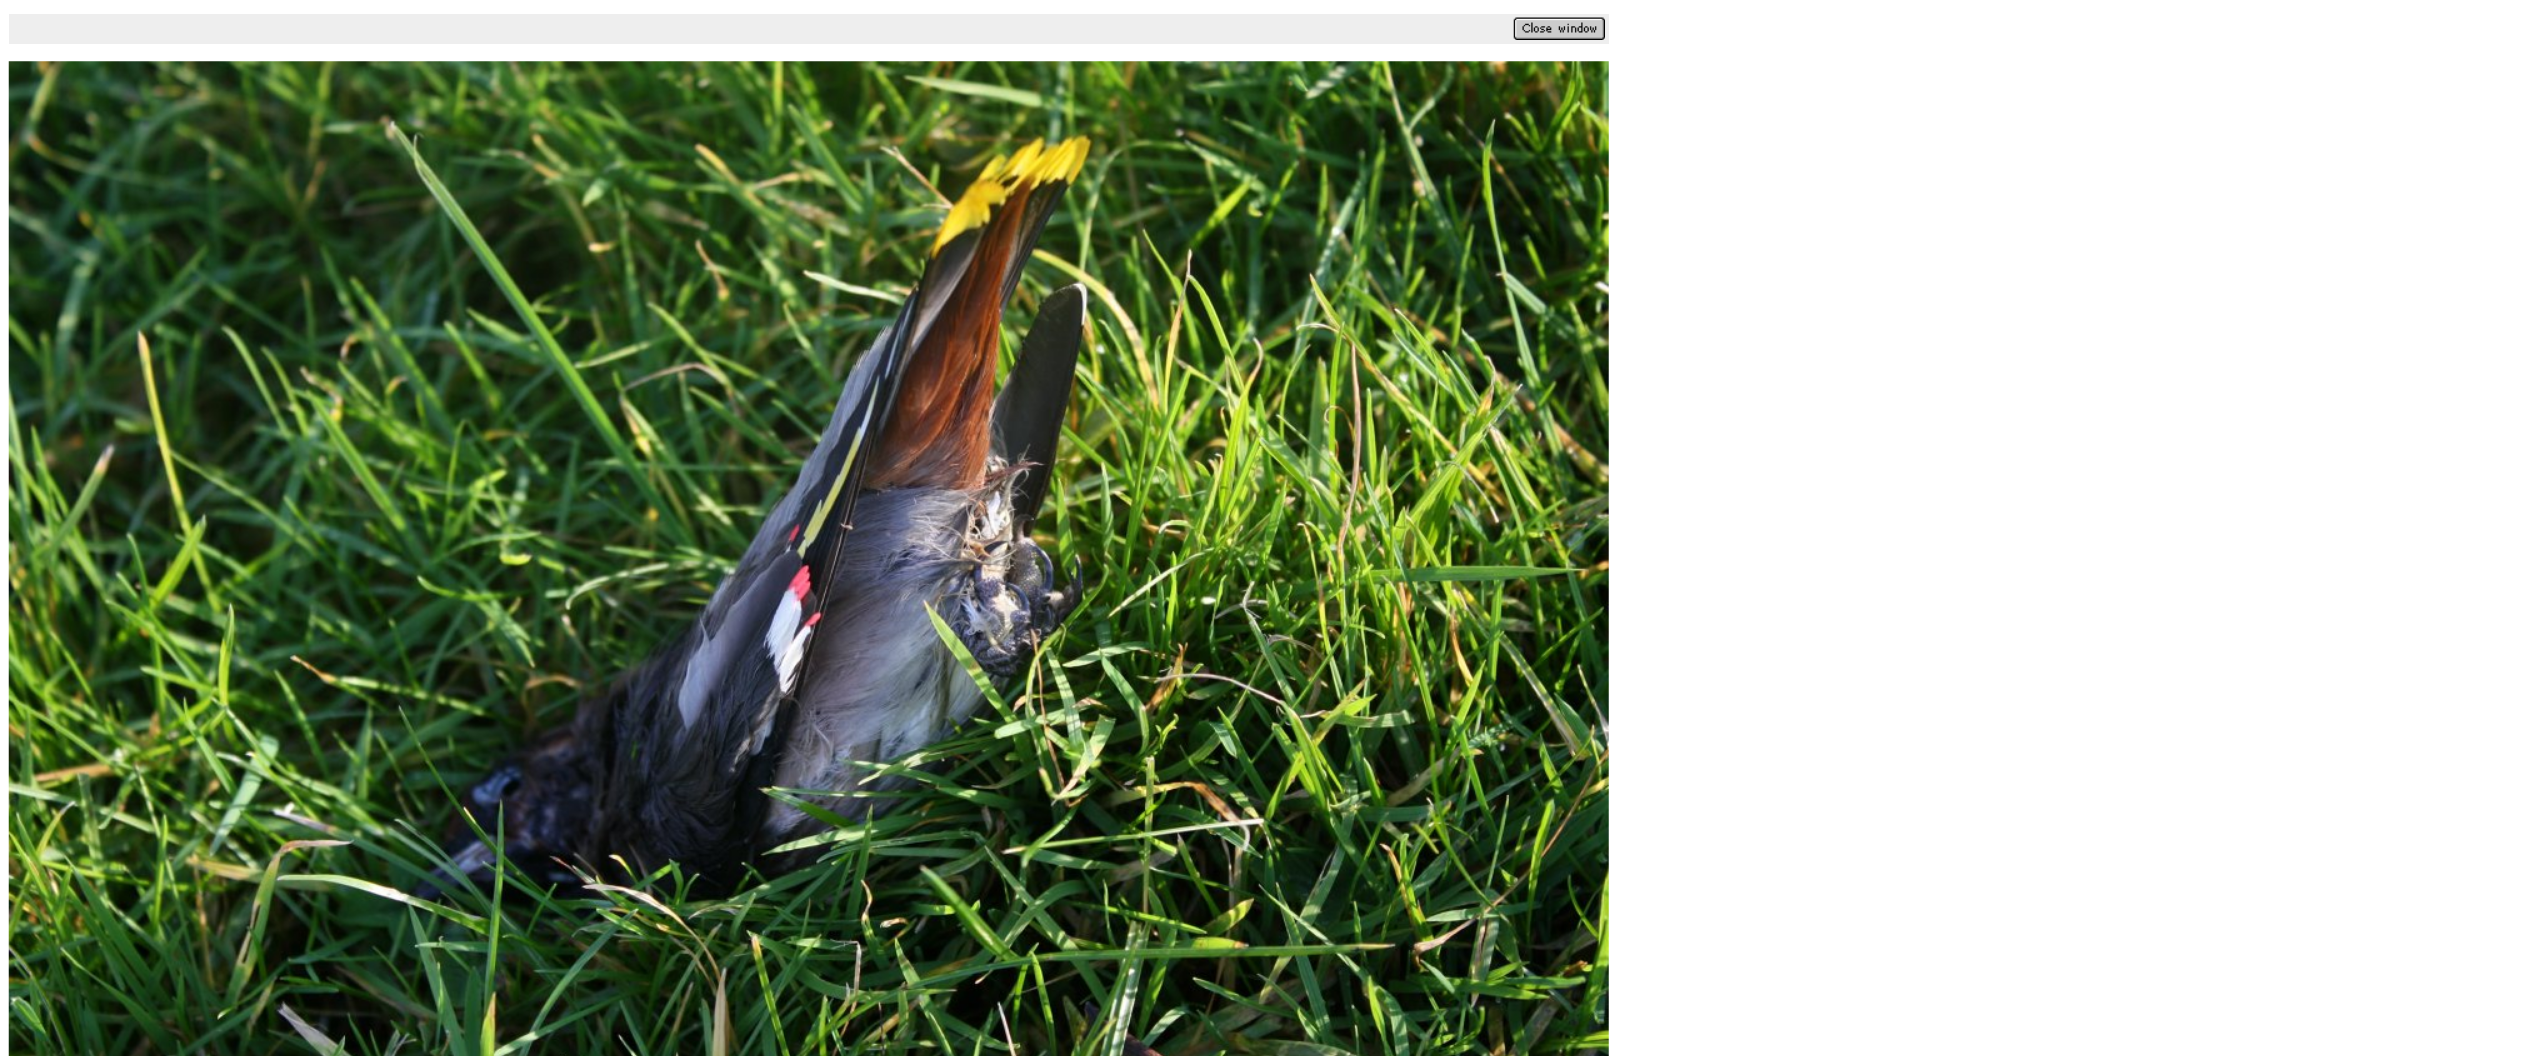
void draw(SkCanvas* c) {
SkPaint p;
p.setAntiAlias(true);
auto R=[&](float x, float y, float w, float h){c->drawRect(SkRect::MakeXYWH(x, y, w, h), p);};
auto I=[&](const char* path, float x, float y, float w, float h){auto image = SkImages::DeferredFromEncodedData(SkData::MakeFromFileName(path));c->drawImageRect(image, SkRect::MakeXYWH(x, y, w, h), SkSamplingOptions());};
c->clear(0xffffffff);
p.setColor(0xffeeeeee);
R(9,14,1600,30);
I("1.png",1513,17,92,23);
I("2.png",8,61,1601,995);
}
